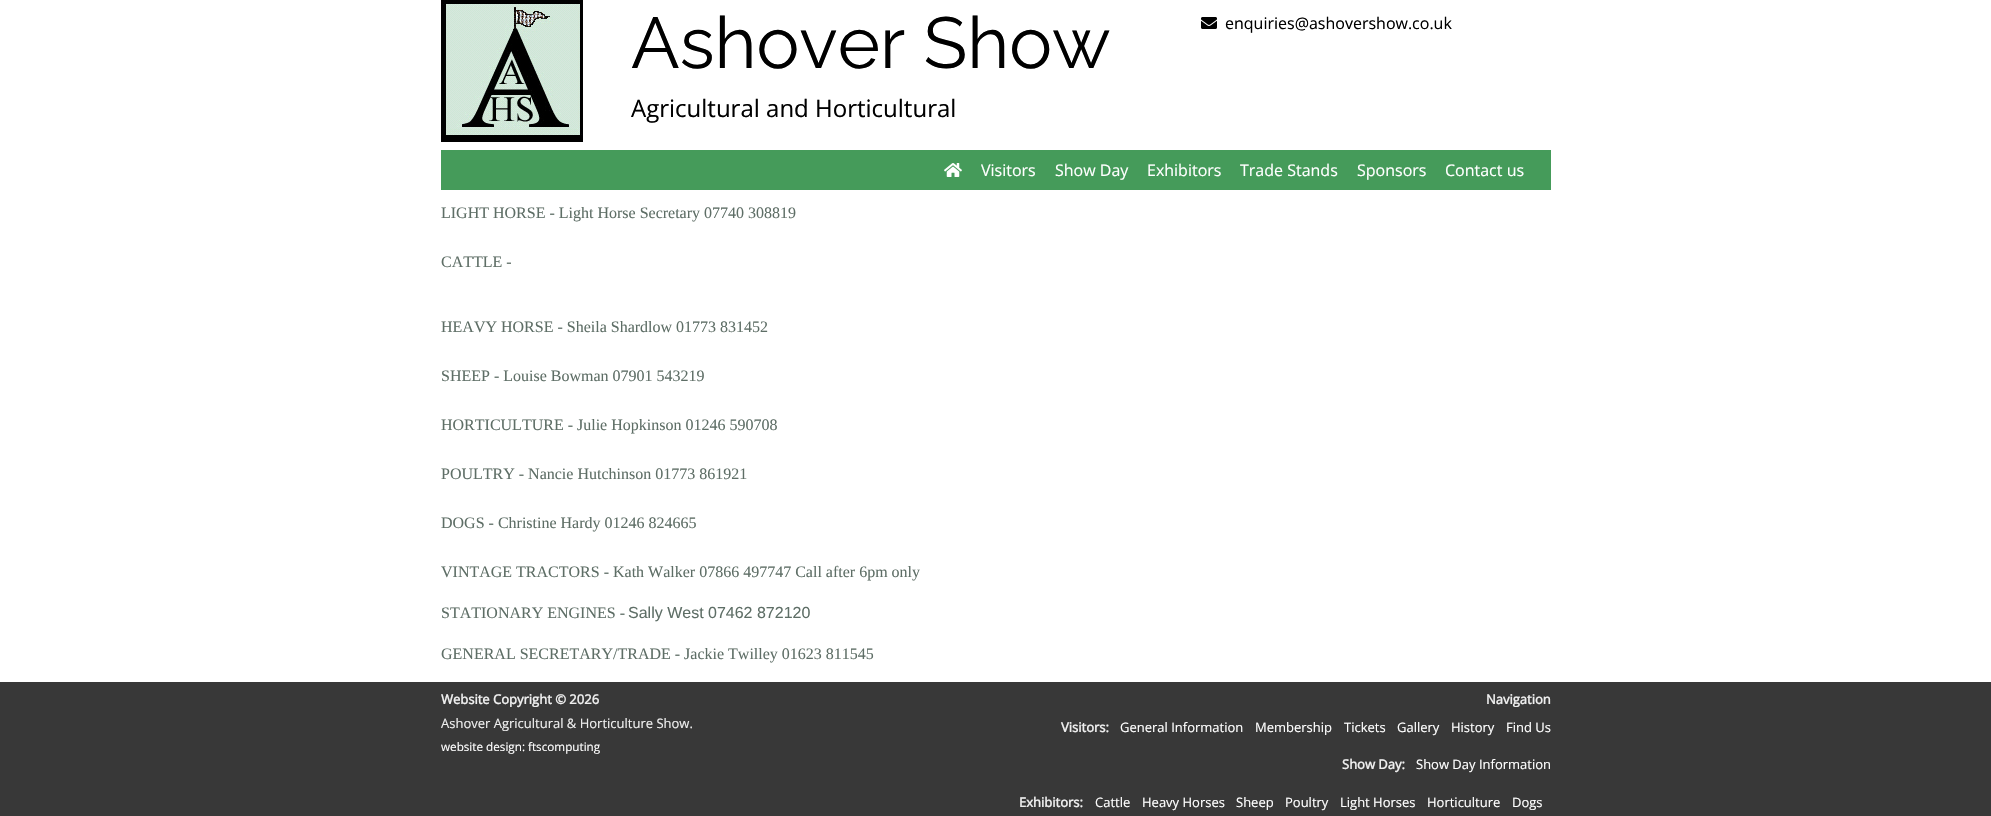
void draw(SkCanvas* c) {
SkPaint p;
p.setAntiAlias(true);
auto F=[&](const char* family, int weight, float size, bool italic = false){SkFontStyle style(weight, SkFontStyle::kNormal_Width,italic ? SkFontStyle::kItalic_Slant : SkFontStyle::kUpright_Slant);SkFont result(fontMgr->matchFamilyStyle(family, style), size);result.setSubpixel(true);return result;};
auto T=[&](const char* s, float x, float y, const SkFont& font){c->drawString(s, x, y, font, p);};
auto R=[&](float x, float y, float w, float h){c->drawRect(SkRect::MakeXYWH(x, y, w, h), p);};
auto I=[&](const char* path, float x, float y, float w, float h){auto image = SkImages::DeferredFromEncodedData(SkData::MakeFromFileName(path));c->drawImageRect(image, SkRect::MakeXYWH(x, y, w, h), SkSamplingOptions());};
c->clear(0xffffffff);
I("1.png",441,0,142,142);
auto f1 = F("Raleway",100,72);
p.setColor(0xff000000);
T("Ashover Show",631,68,f1);
auto f2 = F("Open Sans",400,24);
T("Agricultural and Horticultural",631,117,f2);
I("2.png",1201,17,16,12);
auto f3 = F("Open Sans",400,16);
T("enquiries@ashovershow.co.uk",1225,29,f3);
p.setColor(0xff459b5a);
R(441,150,1110,40);
I("3.png",944,163,18,14);
p.setColor(0xffffffff);
T("Visitors",981,176,f3);
T("Show Day",1055,176,f3);
T("Exhibitors",1147,176,f3);
T("Trade Stands",1240,176,f3);
T("Sponsors",1357,176,f3);
T("Contact us",1445,176,f3);
auto f4 = F("Liberation Serif",400,16);
p.setColor(0xff5e6e66);
T("LIGHT HORSE - Light Horse Secretary 07740 308819",441,218,f4);
T("CATTLE -",441,267,f4);
T("HEAVY HORSE - Sheila Shardlow 01773 831452",441,332,f4);
T("SHEEP - Louise Bowman 07901 543219",441,381,f4);
T("HORTICULTURE - Julie Hopkinson 01246 590708",441,430,f4);
T("POULTRY - Nancie Hutchinson 01773 861921",441,479,f4);
T("DOGS - Christine Hardy 01246 824665",441,528,f4);
T("VINTAGE TRACTORS - Kath Walker 07866 497747 Call after 6pm only",441,577,f4);
T("STATIONARY ENGINES -",441,618,f4);
auto f5 = F("Liberation Sans",400,16);
T("Sally West 07462 872120",628,618,f5);
T("GENERAL SECRETARY/TRADE - Jackie Twilley 01623 811545",441,659,f4);
p.setColor(0xff383838);
R(0,682,1991,134);
auto f6 = F("Open Sans",700,13);
p.setColor(0xffeeeeee);
T("Website Copyright © 2026",441,704,f6);
auto f7 = F("Open Sans",400,13);
T("Ashover Agricultural & Horticulture Show.",441,728,f7);
auto f8 = F("Open Sans",400,11.7);
p.setColor(0xffffffff);
T("website design: ftscomputing",441,751,f8);
p.setColor(0xffeeeeee);
T("Navigation",1486,704,f6);
T("Visitors:",1061,732,f6);
p.setColor(0xffffffff);
T("General Information",1120,732,f7);
T("Membership",1255,732,f7);
T("Tickets",1344,732,f7);
T("Gallery",1397,732,f7);
T("History",1451,732,f7);
T("Find Us",1506,732,f7);
p.setColor(0xffeeeeee);
T("Show Day:",1342,769,f6);
p.setColor(0xffffffff);
T("Show Day Information",1416,769,f7);
p.setColor(0xffeeeeee);
T("Exhibitors:",1019,807,f6);
p.setColor(0xffffffff);
T("Cattle",1095,807,f7);
T("Heavy Horses",1142,807,f7);
T("Sheep",1236,807,f7);
T("Poultry",1285,807,f7);
T("Light Horses",1340,807,f7);
T("Horticulture",1427,807,f7);
T("Dogs",1512,807,f7);
}
